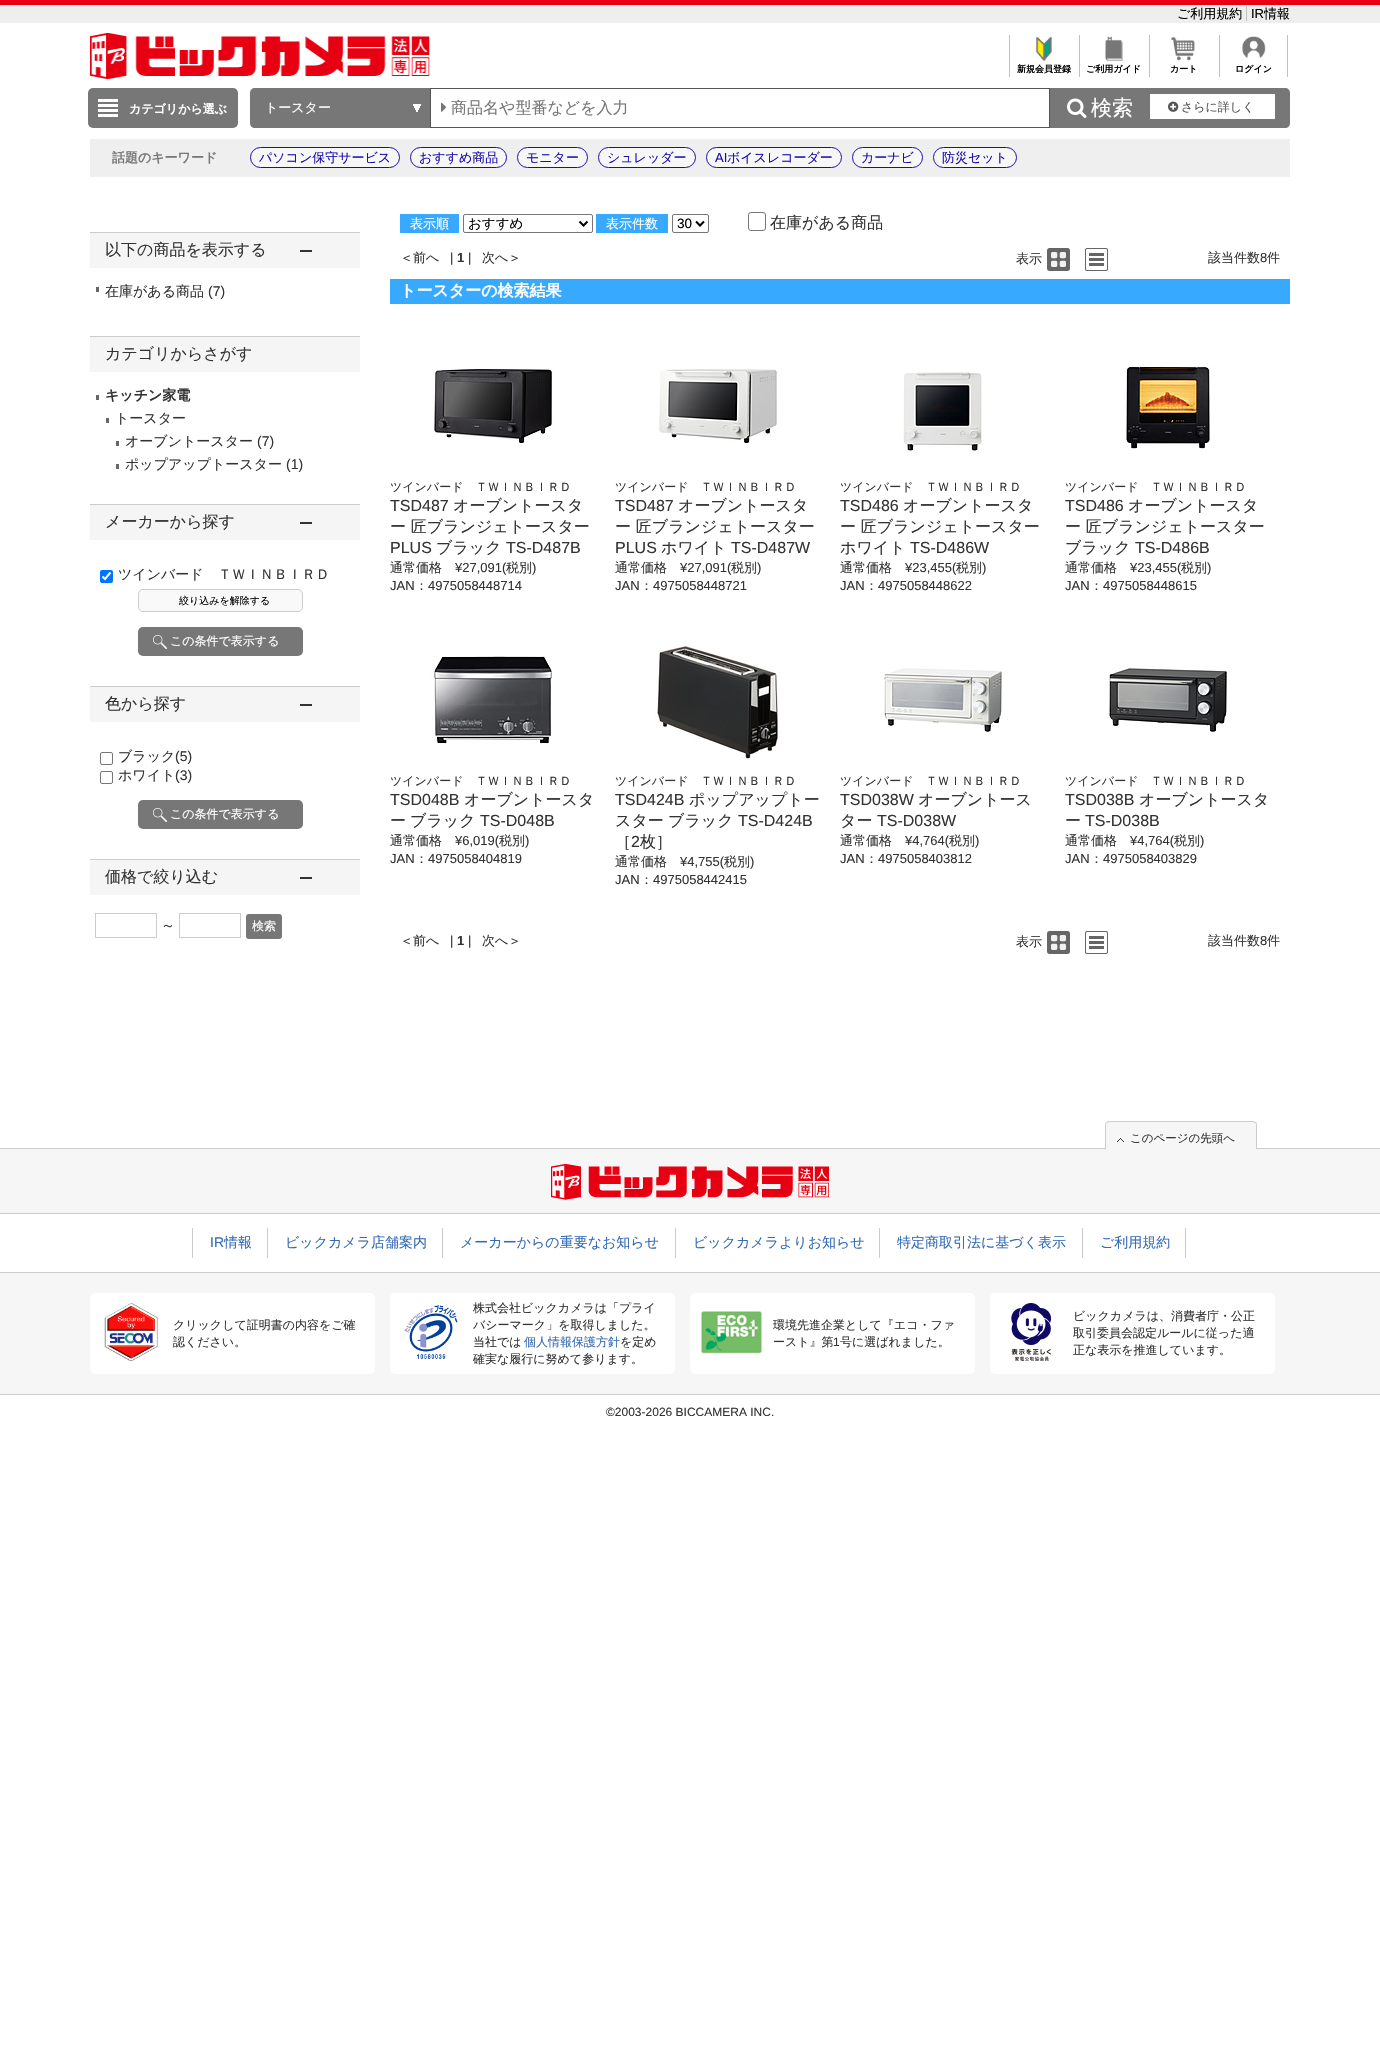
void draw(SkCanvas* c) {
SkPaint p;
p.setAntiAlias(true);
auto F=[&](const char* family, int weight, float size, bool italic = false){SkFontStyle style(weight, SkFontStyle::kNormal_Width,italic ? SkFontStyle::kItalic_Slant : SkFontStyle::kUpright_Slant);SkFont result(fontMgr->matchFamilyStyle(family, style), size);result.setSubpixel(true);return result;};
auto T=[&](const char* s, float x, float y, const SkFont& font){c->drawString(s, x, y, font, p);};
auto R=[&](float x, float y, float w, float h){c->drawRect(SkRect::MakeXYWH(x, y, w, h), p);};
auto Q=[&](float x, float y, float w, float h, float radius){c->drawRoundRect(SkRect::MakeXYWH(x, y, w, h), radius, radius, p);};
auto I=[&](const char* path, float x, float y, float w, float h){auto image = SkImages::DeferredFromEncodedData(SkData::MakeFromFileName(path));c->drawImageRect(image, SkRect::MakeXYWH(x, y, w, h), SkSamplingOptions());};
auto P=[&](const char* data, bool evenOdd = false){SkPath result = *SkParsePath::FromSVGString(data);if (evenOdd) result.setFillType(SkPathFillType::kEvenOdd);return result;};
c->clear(0xffffffff);
p.setColor(0xffe60012);
R(0,0,1380,5);
p.setColor(0xffeeeeee);
R(0,5,1380,18);
auto f1 = F("WenQuanYi Zen Hei",500,13);
p.setColor(0xff000000);
T("ご利用規約",1177,18,f1);
p.setColor(0xffc0c0c0);
R(1246,6,1,15);
auto f2 = F("Liberation Sans",400,13);
p.setColor(0xff000000);
T("IR",1251,18,f2);
T("情報",1264,18,f1);
I("1.png",90,33,340,46);
p.setColor(0xffc0c0c0);
R(1009,35,1,42);
I("2.png",1036,36,16,25);
auto f3 = F("WenQuanYi Zen Hei",700,9);
p.setColor(0xff000000);
T("新規会員登録",1017,72,f3);
p.setColor(0xffc0c0c0);
R(1079,35,1,42);
I("3.png",1105,36,18,25);
p.setColor(0xff000000);
T("ご利用ガイド",1086,72,f3);
p.setColor(0xffc0c0c0);
R(1149,35,1,42);
I("4.png",1171,36,24,25);
p.setColor(0xff000000);
T("カート",1170,72,f3);
p.setColor(0xffc0c0c0);
R(1287,35,1,42);
R(1219,35,1,42);
I("5.png",1242,36,24,22);
p.setColor(0xff000000);
T("ログイン",1235,72,f3);
p.setColor(0xff777777);
Q(88,88,150,40,5);
I("6.png",98,99,20,18);
auto f4 = F("WenQuanYi Zen Hei",700,12);
p.setColor(0xffffffff);
T("カテゴリから選ぶ",129,113,f4);
p.setColor(0xff777777);
c->drawPath(P("M255 88h175v40h-175c-3 0-5-2-5-5v-30c0-3 2-5 5-5z"),p);
I("7.png",413,104,8,8);
p.setColor(0xffffffff);
T("トースター",265,112,f1);
p.setStroke(true);
p.setStrokeWidth(1);
p.setColor(0xff555555);
c->drawRect(SkRect::MakeXYWH(430.5,88.5,619,39),p);
I("8.png",441,102,6,10);
auto f5 = F("WenQuanYi Zen Hei",500,16);
p.setStroke(false);
p.setColor(0xff777777);
T("商品名や型番などを入力",451,113,f5);
R(1050,88,100,40);
I("9.png",1067,98,20,20);
auto f6 = F("WenQuanYi Zen Hei",500,21);
p.setColor(0xffffffff);
T("検索",1091,115,f6);
p.setColor(0xff777777);
c->drawPath(P("M1150 88h135c3 0 5 2 5 5v30c0 3-2 5-5 5h-135z"),p);
p.setColor(0xffffffff);
R(1150,94,125,25);
I("10.png",1168,101,11,11);
auto f7 = F("WenQuanYi Zen Hei",500,12);
p.setColor(0xff555555);
T("さらに詳しく",1181,111,f7);
p.setColor(0xffefefef);
R(90,139,1200,38);
auto f8 = F("WenQuanYi Zen Hei",700,13);
p.setColor(0xff777777);
T("話題のキーワード",112,162,f8);
p.setColor(0xfff7f7f7);
c->drawRoundRect(SkRect::MakeXYWH(250.5,147.5,149,20),10,10,p);
p.setStroke(true);
p.setColor(0xff1a0dab);
c->drawRoundRect(SkRect::MakeXYWH(250.5,147.5,149,20),10,10,p);
p.setStroke(false);
T("パソコン保守サービス",259,162,f1);
p.setColor(0xfff7f7f7);
c->drawRoundRect(SkRect::MakeXYWH(410.5,147.5,96,20),10,10,p);
p.setStroke(true);
p.setColor(0xff1a0dab);
c->drawRoundRect(SkRect::MakeXYWH(410.5,147.5,96,20),10,10,p);
p.setStroke(false);
T("おすすめ商品",419,162,f1);
p.setColor(0xfff7f7f7);
c->drawRoundRect(SkRect::MakeXYWH(517.5,147.5,70,20),10,10,p);
p.setStroke(true);
p.setColor(0xff1a0dab);
c->drawRoundRect(SkRect::MakeXYWH(517.5,147.5,70,20),10,10,p);
p.setStroke(false);
T("モニター",526,162,f1);
p.setColor(0xfff7f7f7);
c->drawRoundRect(SkRect::MakeXYWH(598.5,147.5,97,20),10,10,p);
p.setStroke(true);
p.setColor(0xff1a0dab);
c->drawRoundRect(SkRect::MakeXYWH(598.5,147.5,97,20),10,10,p);
p.setStroke(false);
T("シュレッダー",607,162,f1);
p.setColor(0xfff7f7f7);
c->drawRoundRect(SkRect::MakeXYWH(706.5,147.5,135,20),10,10,p);
p.setStroke(true);
p.setColor(0xff1a0dab);
c->drawRoundRect(SkRect::MakeXYWH(706.5,147.5,135,20),10,10,p);
p.setStroke(false);
T("AI",715,162,f2);
T("ボイスレコーダー",727,162,f1);
p.setColor(0xfff7f7f7);
c->drawRoundRect(SkRect::MakeXYWH(852.5,147.5,70,20),10,10,p);
p.setStroke(true);
p.setColor(0xff1a0dab);
c->drawRoundRect(SkRect::MakeXYWH(852.5,147.5,70,20),10,10,p);
p.setStroke(false);
T("カーナビ",861,162,f1);
p.setColor(0xfff7f7f7);
c->drawRoundRect(SkRect::MakeXYWH(933.5,147.5,83,20),10,10,p);
p.setStroke(true);
p.setColor(0xff1a0dab);
c->drawRoundRect(SkRect::MakeXYWH(933.5,147.5,83,20),10,10,p);
p.setStroke(false);
T("防災セット",942,162,f1);
p.setColor(0xfff5f5f5);
R(90,233,270,35);
p.setColor(0xff333333);
R(300,250,12,2);
p.setColor(0xffcccccc);
R(90,232,270,1);
p.setColor(0xff333333);
T("以下の商品を表示する",105,255,f5);
auto f9 = F("WenQuanYi Zen Hei",500,14);
T("在庫がある商品",105,296,f9);
p.setColor(0xff666666);
R(96,287,3,5);
auto f10 = F("Liberation Sans",400,14);
p.setColor(0xff333333);
T("(7)",208,296,f10);
p.setColor(0xfff5f5f5);
R(90,337,270,35);
p.setColor(0xffcccccc);
R(90,336,270,1);
p.setColor(0xff333333);
T("カテゴリからさがす",105,359,f5);
p.setColor(0xff666666);
R(96,395,3,5);
auto f11 = F("WenQuanYi Zen Hei",700,14);
p.setColor(0xff333333);
T("キッチン家電",105,400,f11);
p.setColor(0xff666666);
R(106,418,3,5);
p.setColor(0xff333333);
T("トースター",115,423,f9);
p.setColor(0xff666666);
R(116,441,3,5);
p.setColor(0xff333333);
T("オーブントースター",125,446,f9);
T("(7)",257,446,f10);
p.setColor(0xff666666);
R(116,464,3,5);
p.setColor(0xff333333);
T("ポップアップトースター",125,469,f9);
T("(1)",286,469,f10);
p.setColor(0xfff5f5f5);
R(90,505,270,35);
p.setColor(0xff333333);
R(300,522,12,2);
p.setColor(0xffcccccc);
R(90,504,270,1);
p.setColor(0xff333333);
T("メーカーから探す",105,527,f5);
p.setColor(0xff0075ff);
Q(100,570,13,13,2);
p.setStroke(true);
p.setStrokeWidth(2.1);
p.setColor(0xffffffff);
c->drawPath(P("M102.5 576.5l2.5 2.5l5.5-6.5"),p);
p.setStroke(false);
p.setColor(0xff333333);
T("ツインバード　ＴＷＩＮＢＩＲＤ",118,579,f9);
p.setColor(0xfff9f9f9);
c->drawRoundRect(SkRect::MakeXYWH(138.5,589.5,164,22),4.5,4.5,p);
p.setStroke(true);
p.setStrokeWidth(1);
p.setColor(0xffcccccc);
c->drawRoundRect(SkRect::MakeXYWH(138.5,589.5,164,22),4.5,4.5,p);
auto f12 = F("WenQuanYi Zen Hei",500,10);
p.setStroke(false);
p.setColor(0xff000000);
T("絞り込みを解除する",179,604,f12);
p.setColor(0xff777777);
Q(138,627,165,29,5);
I("11.png",153,635,14,14);
p.setColor(0xffffffff);
T("この条件で表示する",170,645,f7);
p.setColor(0xfff5f5f5);
R(90,687,270,35);
p.setColor(0xff333333);
R(300,704,12,2);
p.setColor(0xffcccccc);
R(90,686,270,1);
p.setColor(0xff333333);
T("色から探す",105,709,f5);
p.setStroke(true);
p.setColor(0xff767676);
c->drawRoundRect(SkRect::MakeXYWH(100.5,752.5,12,12),1.5,1.5,p);
p.setStroke(false);
p.setColor(0xff333333);
T("ブラック",118,761,f9);
T("(5)",175,761,f10);
p.setStroke(true);
p.setColor(0xff767676);
c->drawRoundRect(SkRect::MakeXYWH(100.5,771.5,12,12),1.5,1.5,p);
p.setStroke(false);
p.setColor(0xff333333);
T("ホワイト",118,780,f9);
T("(3)",175,780,f10);
p.setColor(0xff777777);
Q(138,800,165,29,5);
I("11.png",153,808,14,14);
p.setColor(0xffffffff);
T("この条件で表示する",170,818,f7);
p.setColor(0xfff5f5f5);
R(90,860,270,35);
p.setColor(0xff333333);
R(300,877,12,2);
p.setColor(0xffcccccc);
R(90,859,270,1);
p.setColor(0xff333333);
T("価格で絞り込む",105,882,f5);
p.setStroke(true);
p.setColor(0xffcccccc);
c->drawRect(SkRect::MakeXYWH(95.5,913.5,61,24),p);
p.setStroke(false);
p.setColor(0xff333333);
T("～",161,930,f9);
p.setStroke(true);
p.setColor(0xffcccccc);
c->drawRect(SkRect::MakeXYWH(179.5,913.5,61,24),p);
p.setStroke(false);
p.setColor(0xff777777);
Q(246,914,36,25,3);
p.setColor(0xffffffff);
T("検索",252,930,f7);
p.setColor(0xff37aaff);
R(400,214,59,19);
p.setColor(0xffffffff);
T("表示順",410,228,f1);
p.setStroke(true);
p.setColor(0xff767676);
c->drawRoundRect(SkRect::MakeXYWH(463.5,214.5,129,18),1.5,1.5,p);
p.setStrokeWidth(2);
p.setColor(0xff000000);
c->drawPath(P("M579.5 221.5l4 4l4-4"),p);
auto f13 = F("WenQuanYi Zen Hei",500,13.5);
p.setStroke(false);
T("おすすめ",468,228,f13);
p.setColor(0xff37aaff);
R(596,214,72,19);
p.setColor(0xffffffff);
T("表示件数",606,228,f1);
p.setStroke(true);
p.setStrokeWidth(1);
p.setColor(0xff767676);
c->drawRoundRect(SkRect::MakeXYWH(672.5,214.5,36,18),1.5,1.5,p);
p.setStrokeWidth(2);
p.setColor(0xff000000);
c->drawPath(P("M696 221.5l4 4l4-4"),p);
auto f14 = F("Liberation Sans",400,13.5);
p.setStroke(false);
T("30",677,228,f14);
p.setStroke(true);
p.setStrokeWidth(1);
p.setColor(0xff767676);
c->drawRoundRect(SkRect::MakeXYWH(748.5,212.5,17,18),2.5,2.5,p);
p.setStroke(false);
p.setColor(0xff333333);
T("在庫がある商品",770,228,f5);
T("＜前へ",400,262,f1);
T("|",450,262,f2);
auto f15 = F("Liberation Sans",700,13);
T("1",457,262,f15);
T("|",468,262,f2);
T("次へ＞",482,262,f1);
T("表示",1016,263,f1);
I("12.png",1047,248,23,23);
I("13.png",1085,248,23,23);
T("該当件数",1208,262,f1);
T("8",1260,262,f2);
T("件",1267,262,f1);
p.setColor(0xff37aaff);
R(390,279,900,25);
auto f16 = F("WenQuanYi Zen Hei",700,16);
p.setColor(0xffffffff);
T("トースターの検索結果",400,296,f16);
I("14.png",430,369,125,77);
p.setColor(0xff333333);
T("ツインバード　ＴＷＩＮＢＩＲＤ",390,491,f7);
auto f17 = F("Liberation Sans",400,16);
T("TSD487",390,511,f17);
T("オーブントースタ",453,511,f5);
T("ー 匠ブランジェトースター",390,532,f5);
T("PLUS",390,553,f17);
T("ブラック",436,553,f5);
T("TS-D487B",506,553,f17);
T("通常価格",390,572,f1);
T("¥27,091(",455,572,f2);
T("税別",506,572,f1);
T(")",532,572,f2);
T("JAN",390,590,f2);
T("：",415,590,f1);
T("4975058448714",428,590,f2);
I("15.png",659,369,118,79);
T("ツインバード　ＴＷＩＮＢＩＲＤ",615,491,f7);
T("TSD487",615,511,f17);
T("オーブントースタ",678,511,f5);
T("ー 匠ブランジェトースター",615,532,f5);
T("PLUS",615,553,f17);
T("ホワイト",661,553,f5);
T("TS-D487W",731,553,f17);
T("通常価格",615,572,f1);
T("¥27,091(",680,572,f2);
T("税別",731,572,f1);
T(")",757,572,f2);
T("JAN",615,590,f2);
T("：",640,590,f1);
T("4975058448721",653,590,f2);
I("16.png",903,372,79,81);
T("ツインバード　ＴＷＩＮＢＩＲＤ",840,491,f7);
T("TSD486",840,511,f17);
T("オーブントースタ",903,511,f5);
T("ー 匠ブランジェトースター",840,532,f5);
T("ホワイト",840,553,f5);
T("TS-D486W",910,553,f17);
T("通常価格",840,572,f1);
T("¥23,455(",905,572,f2);
T("税別",956,572,f1);
T(")",982,572,f2);
T("JAN",840,590,f2);
T("：",865,590,f1);
T("4975058448622",878,590,f2);
I("17.png",1124,363,91,87);
T("ツインバード　ＴＷＩＮＢＩＲＤ",1065,491,f7);
T("TSD486",1065,511,f17);
T("オーブントースタ",1128,511,f5);
T("ー 匠ブランジェトースター",1065,532,f5);
T("ブラック",1065,553,f5);
T("TS-D486B",1135,553,f17);
T("通常価格",1065,572,f1);
T("¥23,455(",1130,572,f2);
T("税別",1181,572,f1);
T(")",1207,572,f2);
T("JAN",1065,590,f2);
T("：",1090,590,f1);
T("4975058448615",1103,590,f2);
I("18.png",431,656,122,88);
T("ツインバード　ＴＷＩＮＢＩＲＤ",390,785,f7);
T("TSD048B",390,805,f17);
T("オーブントースタ",464,805,f5);
T("ー",390,826,f5);
T("ブラック",410,826,f5);
T("TS-D048B",480,826,f17);
T("通常価格",390,845,f1);
T("¥6,019(",455,845,f2);
T("税別",499,845,f1);
T(")",525,845,f2);
T("JAN",390,863,f2);
T("：",415,863,f1);
T("4975058404819",428,863,f2);
I("19.png",655,645,127,114);
T("ツインバード　ＴＷＩＮＢＩＲＤ",615,785,f7);
T("TSD424B",615,805,f17);
T("ポップアップトー",689,805,f5);
T("スター",615,826,f5);
T("ブラック",668,826,f5);
T("TS-D424B",738,826,f17);
T("［",615,847,f5);
T("2",631,847,f17);
T("枚］",640,847,f5);
T("通常価格",615,866,f1);
T("¥4,755(",680,866,f2);
T("税別",724,866,f1);
T(")",750,866,f2);
T("JAN",615,884,f2);
T("：",640,884,f1);
T("4975058442415",653,884,f2);
I("20.png",884,668,121,64);
T("ツインバード　ＴＷＩＮＢＩＲＤ",840,785,f7);
T("TSD038W",840,805,f17);
T("オーブントース",918,805,f5);
T("ター",840,826,f5);
T("TS-D038W",877,826,f17);
T("通常価格",840,845,f1);
T("¥4,764(",905,845,f2);
T("税別",949,845,f1);
T(")",975,845,f2);
T("JAN",840,863,f2);
T("：",865,863,f1);
T("4975058403812",878,863,f2);
I("21.png",1108,666,119,66);
T("ツインバード　ＴＷＩＮＢＩＲＤ",1065,785,f7);
T("TSD038B",1065,805,f17);
T("オーブントースタ",1139,805,f5);
T("ー",1065,826,f5);
T("TS-D038B",1085,826,f17);
T("通常価格",1065,845,f1);
T("¥4,764(",1130,845,f2);
T("税別",1174,845,f1);
T(")",1200,845,f2);
T("JAN",1065,863,f2);
T("：",1090,863,f1);
T("4975058403829",1103,863,f2);
T("＜前へ",400,945,f1);
T("|",450,945,f2);
T("1",457,945,f15);
T("|",468,945,f2);
T("次へ＞",482,945,f1);
T("表示",1016,946,f1);
I("12.png",1047,931,23,23);
I("13.png",1085,931,23,23);
T("該当件数",1208,945,f1);
T("8",1260,945,f2);
T("件",1267,945,f1);
p.setColor(0xffcccccc);
R(0,1148,1380,1);
p.setColor(0xfff6f6f6);
R(0,1149,1380,64);
c->drawPath(P("M1109 1121h144c2 0 4 2 4 4v25h-152v-25c0-2 2-4 4-4z"),p);
p.setColor(0xffcccccc);
c->drawPath(P("M1109 1121l-3 1l1 1l2-1h144l2 1l1-1l-3-1z"),p);
c->drawPath(P("M1257 1150v-25c0-1-.5-2-1-3l-1 1c1 0 1 1 1 2v24z"),p);
p.setColor(0xfff6f6f6);
c->drawPath(P("M1257 1150l-1-1h-150l-1 1z"),p);
p.setColor(0xffcccccc);
c->drawPath(P("M1105 1150l1-1v-24c0-1 0-2 1-2l-1-1c-.5 1-1 2-1 3z"),p);
I("22.png",1117,1138,7,4);
auto f18 = F("WenQuanYi Zen Hei",500,11.5);
p.setColor(0xff333333);
T("このページの先頭へ",1130,1142,f18);
I("23.png",551,1164,278,36);
p.setColor(0xffcccccc);
R(0,1213,1380,1);
R(0,1272,1380,1);
R(192,1228,1,30);
p.setColor(0xff356bb3);
T("IR",210,1247,f10);
T("情報",224,1247,f9);
p.setColor(0xffcccccc);
R(267,1228,1,30);
p.setColor(0xff356bb3);
T("ビックカメラ店舗案内",285,1247,f9);
p.setColor(0xffcccccc);
R(442,1228,1,30);
p.setColor(0xff356bb3);
T("メーカーからの重要なお知らせ",460,1247,f9);
p.setColor(0xffcccccc);
R(675,1228,1,30);
p.setColor(0xff356bb3);
T("ビックカメラよりお知らせ",693,1247,f9);
p.setColor(0xffcccccc);
R(879,1228,1,30);
p.setColor(0xff356bb3);
T("特定商取引法に基づく表示",897,1247,f9);
p.setColor(0xffcccccc);
R(1082,1228,1,30);
p.setColor(0xff356bb3);
T("ご利用規約",1100,1247,f9);
p.setColor(0xffcccccc);
R(1185,1228,1,30);
p.setColor(0xfff6f6f6);
R(0,1273,1380,121);
p.setColor(0xffcccccc);
R(0,1394,1380,1);
p.setColor(0xffffffff);
Q(90,1293,285,81,5);
I("24.png",104,1303,54,58);
p.setColor(0xff333333);
T("クリックして証明書の内容をご確",173,1329,f7);
T("認ください。",173,1346,f7);
p.setColor(0xffffffff);
Q(390,1293,285,81,5);
I("25.png",404,1304,54,56);
p.setColor(0xff333333);
T("株式会社ビックカメラは「プライ",473,1312,f7);
T("バシーマーク」を取得しました。",473,1329,f7);
T("当社では",473,1346,f7);
p.setColor(0xff356bb3);
T("個人情報保護方針",524,1346,f7);
p.setColor(0xff333333);
T("を定め",620,1346,f7);
T("確実な履行に努めて参ります。",473,1363,f7);
p.setColor(0xffffffff);
Q(690,1293,285,81,5);
I("26.png",701,1311,61,43);
p.setColor(0xff333333);
T("環境先進企業として『エコ・ファ",773,1329,f7);
T("ースト』第",773,1346,f7);
auto f19 = F("Liberation Sans",400,12);
T("1",833,1346,f19);
T("号に選ばれました。",840,1346,f7);
p.setColor(0xffffffff);
Q(990,1293,285,81,5);
I("27.png",1011,1303,40,58);
p.setColor(0xff333333);
T("ビックカメラは、消費者庁・公正",1073,1320,f7);
T("取引委員会認定ルールに従った適",1073,1337,f7);
T("正な表示を推進しています。",1073,1354,f7);
T("©2003-2026 BICCAMERA INC.",606,1416,f19);
}
